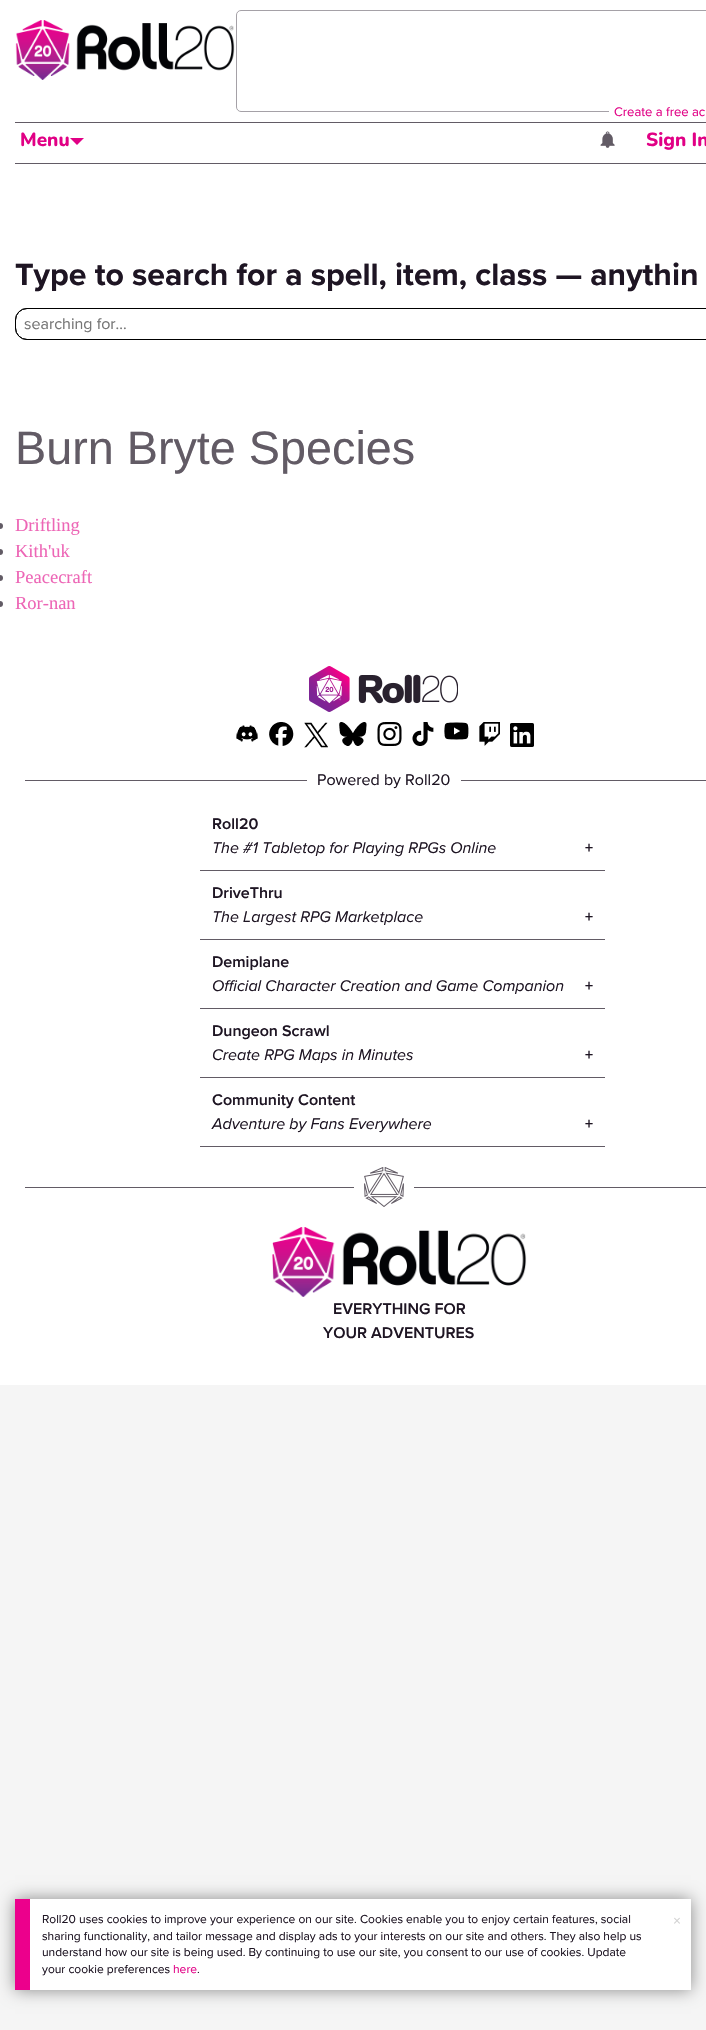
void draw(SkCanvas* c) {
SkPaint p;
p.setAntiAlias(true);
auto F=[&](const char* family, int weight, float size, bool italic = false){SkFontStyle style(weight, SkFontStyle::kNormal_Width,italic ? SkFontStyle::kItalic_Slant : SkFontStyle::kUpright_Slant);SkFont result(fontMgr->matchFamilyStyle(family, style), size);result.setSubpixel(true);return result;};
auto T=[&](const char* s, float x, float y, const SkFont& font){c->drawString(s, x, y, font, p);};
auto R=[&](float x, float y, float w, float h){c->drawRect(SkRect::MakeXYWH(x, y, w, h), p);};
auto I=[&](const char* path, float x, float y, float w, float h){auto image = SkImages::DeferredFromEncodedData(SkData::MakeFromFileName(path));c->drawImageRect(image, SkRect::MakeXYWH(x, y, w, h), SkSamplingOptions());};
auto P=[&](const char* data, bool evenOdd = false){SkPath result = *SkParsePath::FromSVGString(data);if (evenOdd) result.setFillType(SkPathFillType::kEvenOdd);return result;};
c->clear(0xfff5f5f5);
p.setColor(0xffffffff);
R(0,0,706,1385);
I("1.png",15,20,220,60);
p.setStroke(true);
p.setStrokeWidth(1);
p.setColor(0xffa5a1a7);
c->drawRoundRect(SkRect::MakeXYWH(236.5,10.5,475,101),4.5,4.5,p);
p.setStroke(false);
p.setColor(0xffffffff);
R(609,111,97,1);
auto f1 = F("Proxima Nova",400,13);
p.setColor(0xffe10085);
T("Create a free ac",614,116,f1);
p.setColor(0xff625b65);
R(15,122,691,1);
R(15,163,691,1);
auto f2 = F("Nunito",800,19);
p.setColor(0xffe10085);
T("Menu",20,146,f2);
c->drawPath(P("M70 138h14l-7 7z"),p);
auto f3 = F("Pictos",400,19);
p.setColor(0xff625b65);
T(":",600,145,f3);
p.setColor(0xffe10085);
T("Sign In",646,146,f2);
auto f4 = F("Proxima Nova",700,32);
p.setColor(0xff1e1523);
T("Type to search for a spell, item, class — anythin",15,285,f4);
p.setStroke(true);
p.setColor(0xff000000);
c->drawRoundRect(SkRect::MakeXYWH(15.5,308.5,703,31),11.5,11.5,p);
c->drawRoundRect(SkRect::MakeXYWH(15.5,308.5,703,31),11.5,11.5,p);
auto f5 = F("Proxima Nova",400,16);
p.setStroke(false);
p.setColor(0xff757575);
T("searching for...",24,329,f5);
auto f6 = F("Liberation Sans",400,46.75);
p.setColor(0xff625b65);
T("Burn Bryte Species",15,464,f6);
c->drawCircle(0,526,3,p);
auto f7 = F("Liberation Serif",400,18.5);
p.setColor(0xffed66b6);
T("Driftling",15,531,f7);
p.setColor(0xff625b65);
c->drawCircle(0,552,3,p);
p.setColor(0xffed66b6);
T("Kith'uk",15,557,f7);
p.setColor(0xff625b65);
c->drawCircle(0,578,3,p);
p.setColor(0xffed66b6);
T("Peacecraft",15,583,f7);
p.setColor(0xff625b65);
c->drawCircle(0,604,3,p);
p.setColor(0xffed66b6);
T("Ror-nan",15,609,f7);
I("2.png",309,666,149,46);
I("3.png",236,725,22,17);
I("4.png",269,722,25,24);
I("5.png",304,722,24,26);
I("6.png",339,722,28,24);
I("7.png",377,722,25,24);
I("8.png",412,722,22,24);
I("9.png",444,722,25,18);
I("10.png",479,722,21,24);
I("11.png",510,723,24,24);
p.setColor(0xff625b65);
R(25,780,282,1);
p.setColor(0xff1e1523);
T("Powered by Roll20",317,785,f5);
p.setColor(0xff625b65);
R(461,780,245,1);
R(200,870,405,1);
auto f8 = F("Proxima Nova",600,16);
p.setColor(0xff1e1523);
T("Roll20",212,829,f8);
auto f9 = F("Proxima Nova",400,16,true);
T("The #1 Tabletop for Playing RPGs Online",212,853,f9);
T("+",585,853,f8);
p.setColor(0xff625b65);
R(200,939,405,1);
p.setColor(0xff1e1523);
T("DriveThru",212,898,f8);
T("The Largest RPG Marketplace",212,922,f9);
T("+",585,922,f8);
p.setColor(0xff625b65);
R(200,1008,405,1);
p.setColor(0xff1e1523);
T("Demiplane",212,967,f8);
T("Official Character Creation and Game Companion",212,991,f9);
T("+",585,991,f8);
p.setColor(0xff625b65);
R(200,1077,405,1);
p.setColor(0xff1e1523);
T("Dungeon Scrawl",212,1036,f8);
T("Create RPG Maps in Minutes",212,1060,f9);
T("+",585,1060,f8);
p.setColor(0xff625b65);
R(200,1146,405,1);
p.setColor(0xff1e1523);
T("Community Content",212,1105,f8);
T("Adventure by Fans Everywhere",212,1129,f9);
T("+",585,1129,f8);
p.setColor(0xff625b65);
R(25,1187,329,1);
I("12.png",364,1167,40,40);
R(414,1187,292,1);
I("13.png",272,1227,255,70);
p.setColor(0xff1e1523);
T("EVERYTHING FOR",333,1314,f8);
T("YOUR ADVENTURES",323,1338,f8);
p.setColor(0xff888888);
p.setMaskFilter(SkMaskFilter::MakeBlur(kNormal_SkBlurStyle, 8));
c->drawRect(SkRect::MakeXYWH(15,1899,676,91),p);
p.setMaskFilter(nullptr);
p.setColor(0xffffffff);
R(30,1899,661,91);
p.setColor(0xffec008c);
R(15,1899,15,91);
auto f10 = F("Proxima Nova",400,12);
p.setColor(0xff1e1523);
T("Roll20 uses cookies to improve your experience on our site. Cookies enable you to enjoy certain features, social",42,1923,f10);
T("sharing functionality, and tailor message and display ads to your interests on our site and others. They also help us",42,1940,f10);
T("understand how our site is being used. By continuing to use our site, you consent to our use of cookies. Update",42,1956,f10);
T("your cookie preferences",42,1973,f10);
p.setColor(0xffe10085);
T("here",173,1973,f10);
p.setColor(0xff1e1523);
T(".",197,1973,f10);
p.setColor(0xffd1d1d1);
T("×",673,1926,f5);
}
